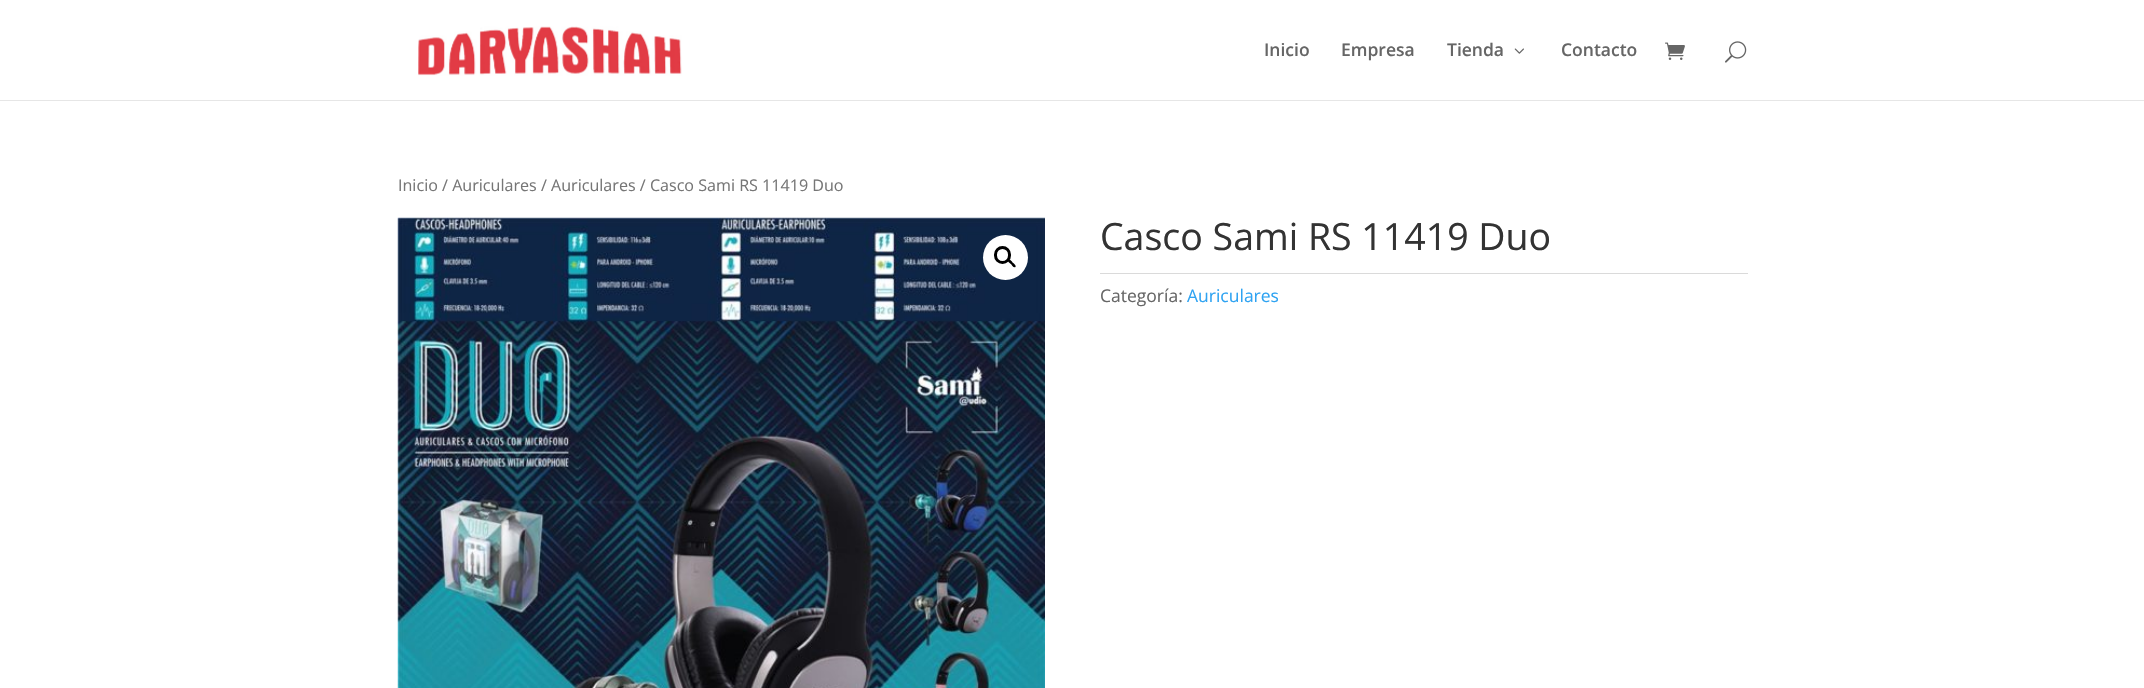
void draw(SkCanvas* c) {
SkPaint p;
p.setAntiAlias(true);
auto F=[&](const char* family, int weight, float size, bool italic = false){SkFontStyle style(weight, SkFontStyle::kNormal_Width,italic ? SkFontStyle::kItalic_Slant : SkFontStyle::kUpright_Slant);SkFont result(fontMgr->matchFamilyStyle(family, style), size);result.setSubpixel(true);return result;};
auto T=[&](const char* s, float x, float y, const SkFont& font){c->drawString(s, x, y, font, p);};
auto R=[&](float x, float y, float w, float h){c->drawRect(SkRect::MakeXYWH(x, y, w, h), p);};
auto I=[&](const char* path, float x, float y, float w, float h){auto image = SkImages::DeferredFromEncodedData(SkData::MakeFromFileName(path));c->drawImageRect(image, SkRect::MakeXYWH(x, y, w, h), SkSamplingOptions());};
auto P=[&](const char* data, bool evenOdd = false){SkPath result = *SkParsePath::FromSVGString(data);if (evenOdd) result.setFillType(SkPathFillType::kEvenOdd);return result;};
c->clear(0xffffffff);
p.setColor(0xffe6e6e6);
R(0,100,2144,1);
I("1.png",418,26,264,50);
auto f1 = F("Open Sans",600,17.5);
p.setColor(0xff666666);
T("Inicio",1264,56,f1);
T("Empresa",1341,56,f1);
T("Tienda",1447,56,f1);
I("2.png",1514,48,10,6);
T("Contacto",1561,56,f1);
I("3.png",1665,42,20,18);
I("4.png",1725,41,22,22);
auto f2 = F("Open Sans",400,16.1);
p.setColor(0xff767676);
T("Inicio / Auriculares / Auriculares / Casco Sami RS 11419 Duo",398,191,f2);
I("5.png",397,217,648,471);
p.setColor(0xffffffff);
c->drawCircle(1005.5,257.5,22.5,p);
p.setStroke(true);
p.setStrokeWidth(3);
p.setColor(0xff000000);
c->drawRoundRect(SkRect::MakeXYWH(995.5,247.5,14,15),7,7,p);
p.setStroke(false);
c->drawPath(P("M1008 260c1.5-1.5 4 1.5 4.5 2.5c1 .5 4 3 3 4.5c-1.5 1.5-4-2-4.5-3c-1-.5-4-3-3-4z"),p);
auto f3 = F("Open Sans",400,37.5);
p.setColor(0xff333333);
T("Casco Sami RS 11419 Duo",1100,250,f3);
p.setColor(0xffdadada);
R(1100,273,648,1);
auto f4 = F("Open Sans",400,17.5);
p.setColor(0xff666666);
T("Categoría:",1100,302,f4);
p.setColor(0xff2ea3f2);
T("Auriculares",1187,302,f4);
}
